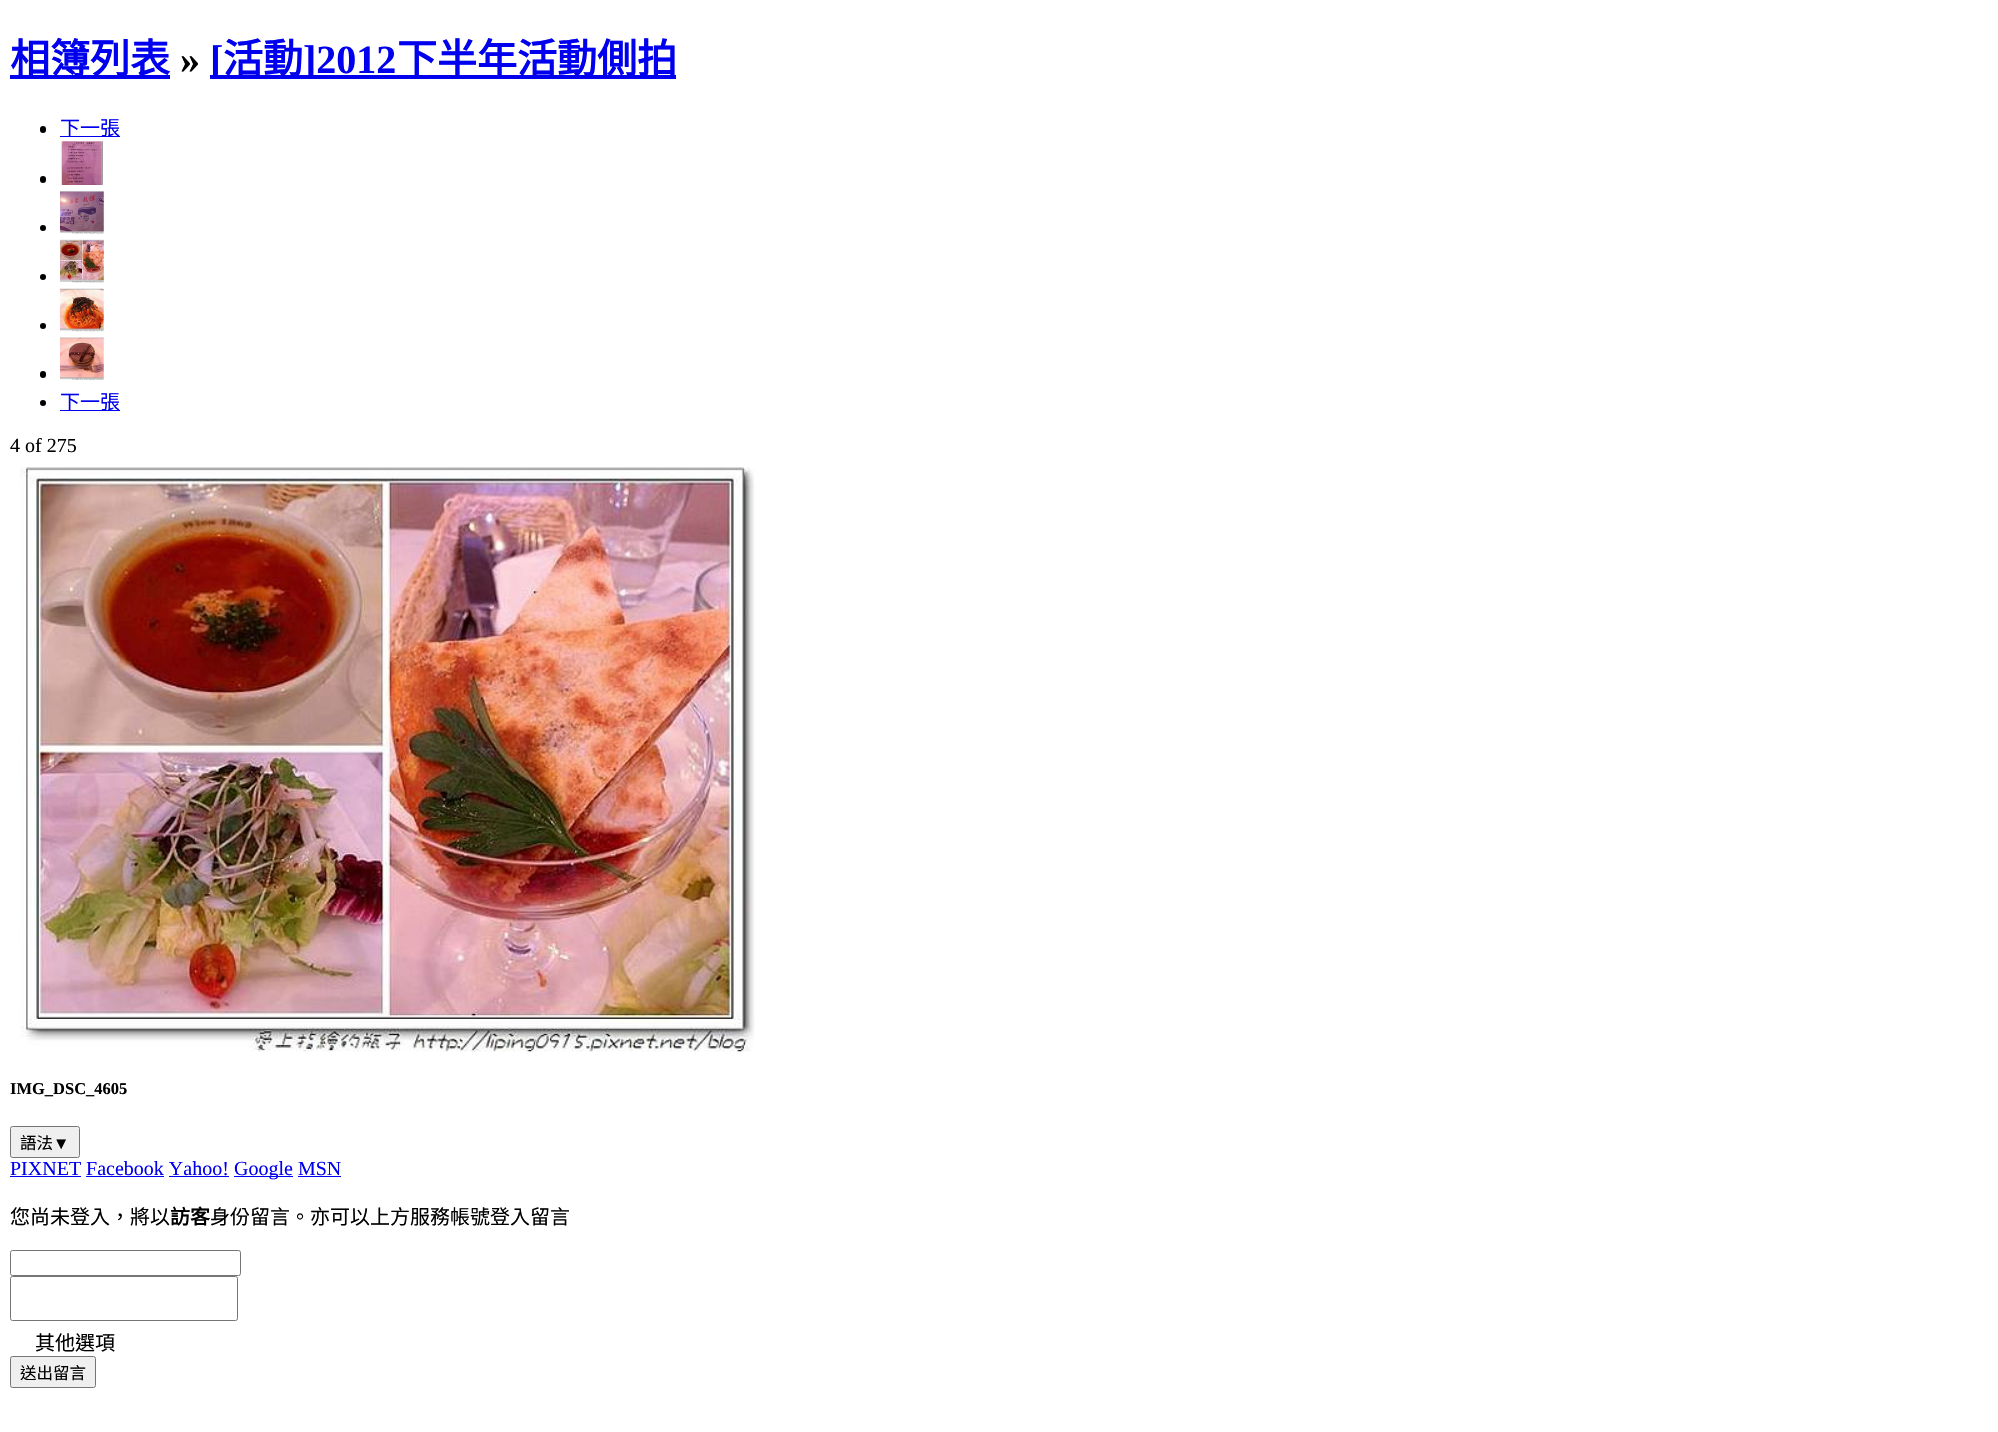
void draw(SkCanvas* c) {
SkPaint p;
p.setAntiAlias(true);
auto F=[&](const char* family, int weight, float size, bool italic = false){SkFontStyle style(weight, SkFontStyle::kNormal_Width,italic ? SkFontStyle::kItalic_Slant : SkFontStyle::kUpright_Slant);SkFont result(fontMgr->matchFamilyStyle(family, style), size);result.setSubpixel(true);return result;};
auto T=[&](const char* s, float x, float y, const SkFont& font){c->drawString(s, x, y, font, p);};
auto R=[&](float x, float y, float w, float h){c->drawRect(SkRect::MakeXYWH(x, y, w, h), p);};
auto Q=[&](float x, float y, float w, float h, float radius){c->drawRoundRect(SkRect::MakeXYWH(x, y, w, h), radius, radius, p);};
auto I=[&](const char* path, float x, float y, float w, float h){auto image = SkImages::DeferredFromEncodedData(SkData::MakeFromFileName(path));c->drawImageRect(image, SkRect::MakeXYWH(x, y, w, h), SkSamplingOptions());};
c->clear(0xffffffff);
p.setColor(0xff0000ee);
R(10,75,160,4);
auto f1 = F("Noto Sans CJK TC",700,40);
T("相簿列表",10,73,f1);
auto f2 = F("Liberation Serif",700,40);
p.setColor(0xff000000);
T("»",180,73,f2);
p.setColor(0xff0000ee);
R(210,75,466,4);
T("[",210,73,f2);
T("活動",223,73,f1);
T("]2012",303,73,f2);
T("下半年活動側拍",397,73,f1);
p.setColor(0xff000000);
Q(40,126,6,7,3);
p.setColor(0xff0000ee);
R(60,136,60,1);
auto f3 = F("Noto Sans CJK TC",400,20);
T("下一張",60,135,f3);
p.setColor(0xff000000);
Q(40,176,6,7,3);
I("1.png",60,141,43,44);
c->drawCircle(43,228,3,p);
I("2.png",60,190,44,44);
c->drawCircle(43,277,3,p);
I("3.png",60,239,44,44);
c->drawCircle(43,326,3,p);
I("4.png",60,288,44,44);
Q(40,371,6,7,3);
I("5.png",60,337,44,43);
c->drawCircle(43,403,3,p);
p.setColor(0xff0000ee);
R(60,410,60,1);
T("下一張",60,409,f3);
auto f4 = F("Liberation Serif",400,20);
p.setColor(0xff000000);
T("4 of 275",10,452,f4);
I("6.png",20,467,735,585);
auto f5 = F("Liberation Serif",700,16.5);
T("IMG_DSC_4605",10,1094,f5);
p.setColor(0xffefefef);
c->drawRoundRect(SkRect::MakeXYWH(10.5,1126.5,69,31),2,2,p);
p.setStroke(true);
p.setStrokeWidth(1);
p.setColor(0xff767676);
c->drawRoundRect(SkRect::MakeXYWH(10.5,1126.5,69,31),2,2,p);
auto f6 = F("Noto Sans CJK TC",400,16.5);
p.setStroke(false);
p.setColor(0xff000000);
T("語法",20,1149,f6);
auto f7 = F("Liberation Sans",400,16.5);
T("▼",53,1149,f7);
p.setColor(0xff0000ee);
T("PIXNET Facebook Yahoo!",10,1175,f4);
R(10,1176,71,1);
R(234,1176,59,1);
T("Google MSN",234,1175,f4);
R(86,1176,78,1);
R(169,1176,60,1);
R(298,1176,43,1);
p.setColor(0xff000000);
T("您尚未登入，將以",10,1224,f3);
auto f8 = F("Noto Sans CJK TC",700,20);
T("訪客",170,1224,f8);
T("身份留言。亦可以上方服務帳號登入留言",210,1224,f3);
p.setStroke(true);
p.setColor(0xff767676);
c->drawRoundRect(SkRect::MakeXYWH(10.5,1250.5,230,25),2,2,p);
c->drawRoundRect(SkRect::MakeXYWH(10.5,1276.5,227,44),2,2,p);
p.setStroke(false);
p.setColor(0xff000000);
T("其他選項",35,1350,f3);
p.setColor(0xffefefef);
c->drawRoundRect(SkRect::MakeXYWH(10.5,1356.5,85,31),2,2,p);
p.setStroke(true);
p.setColor(0xff767676);
c->drawRoundRect(SkRect::MakeXYWH(10.5,1356.5,85,31),2,2,p);
p.setStroke(false);
p.setColor(0xff000000);
T("送出留言",20,1379,f6);
}
